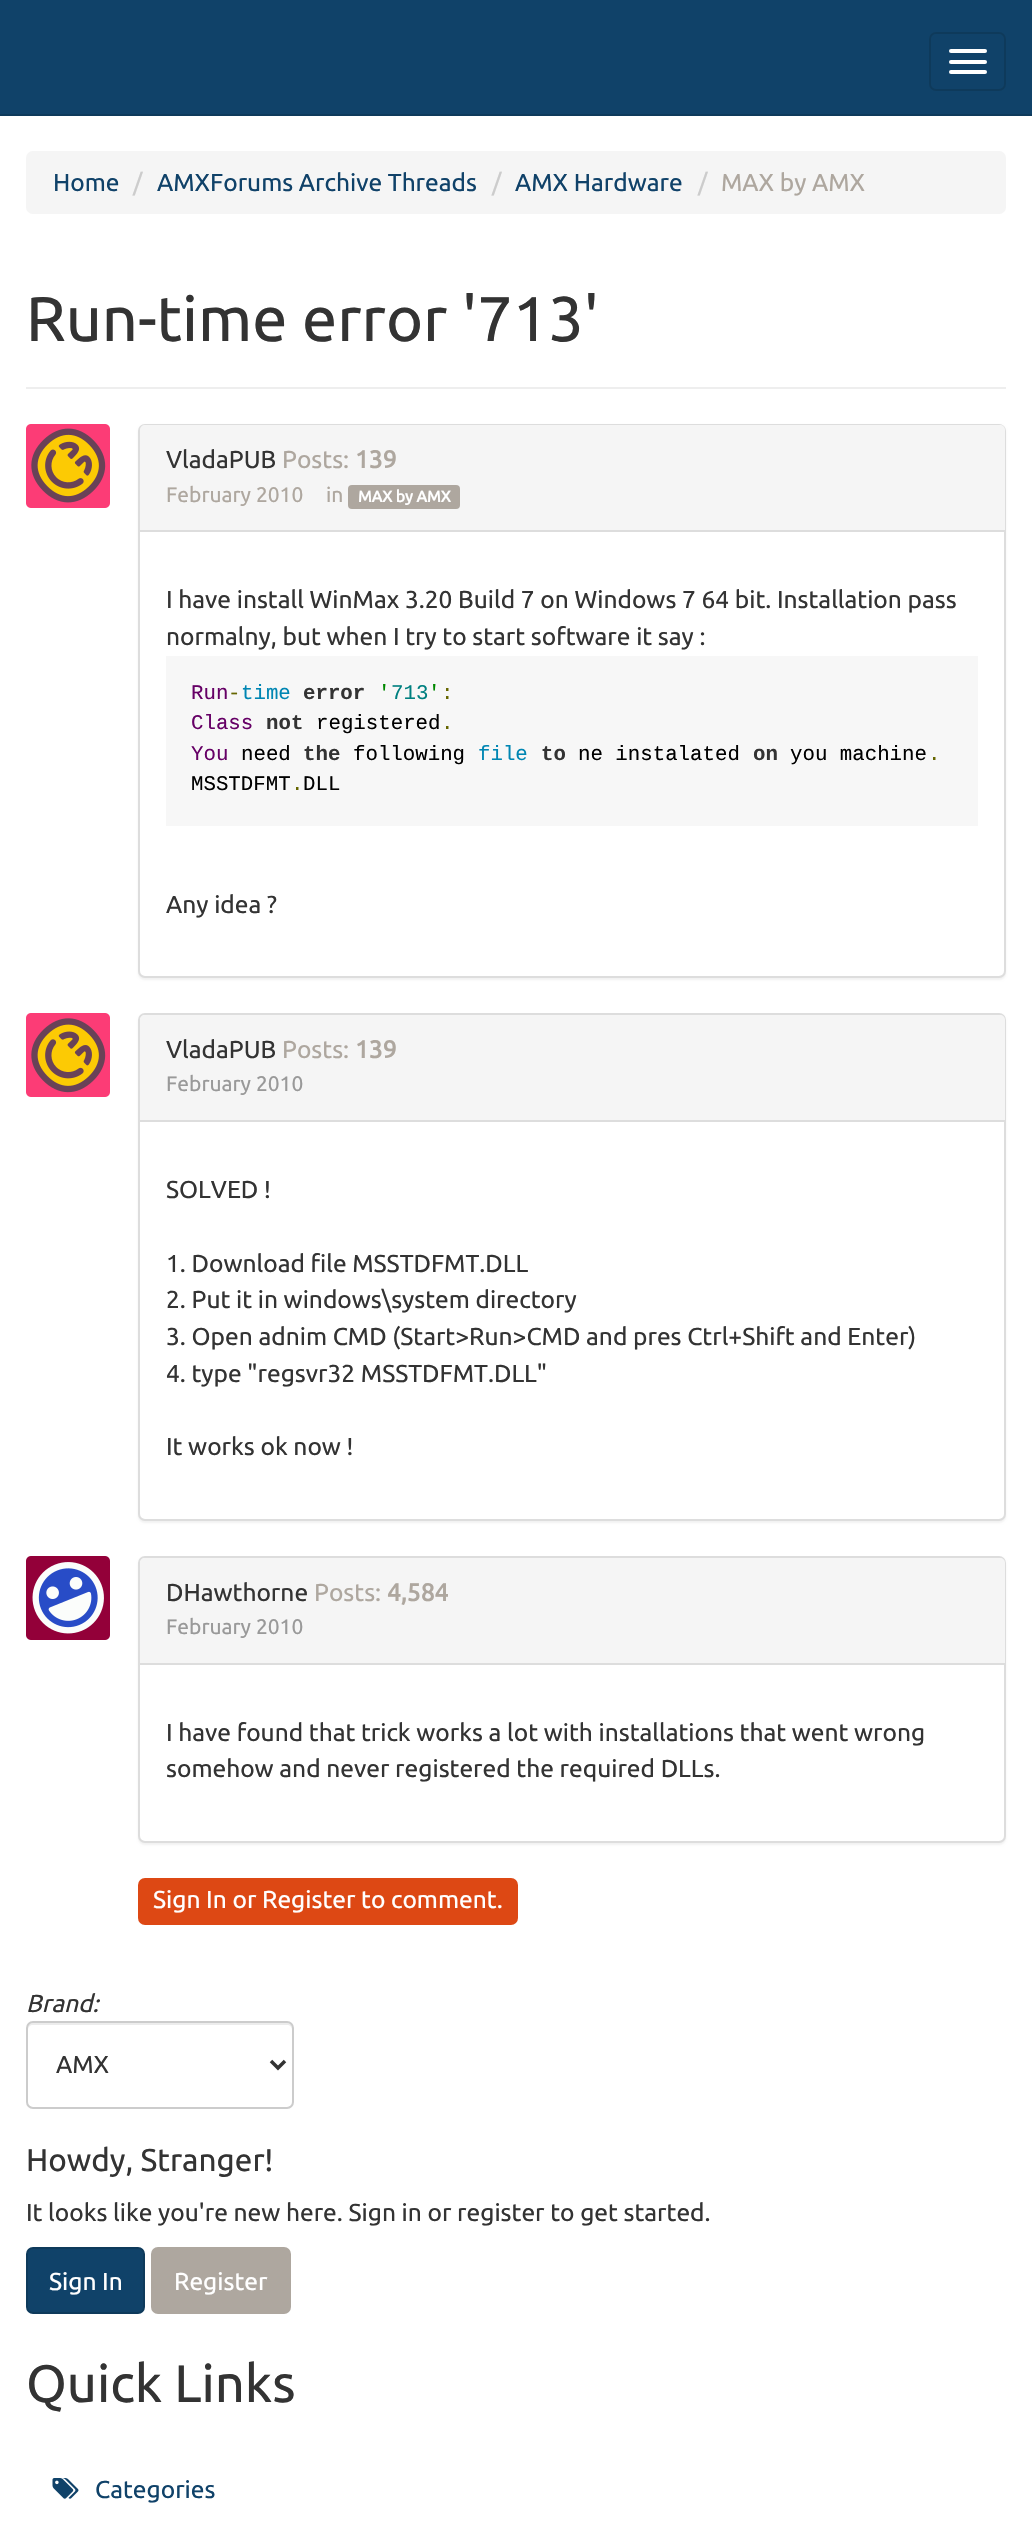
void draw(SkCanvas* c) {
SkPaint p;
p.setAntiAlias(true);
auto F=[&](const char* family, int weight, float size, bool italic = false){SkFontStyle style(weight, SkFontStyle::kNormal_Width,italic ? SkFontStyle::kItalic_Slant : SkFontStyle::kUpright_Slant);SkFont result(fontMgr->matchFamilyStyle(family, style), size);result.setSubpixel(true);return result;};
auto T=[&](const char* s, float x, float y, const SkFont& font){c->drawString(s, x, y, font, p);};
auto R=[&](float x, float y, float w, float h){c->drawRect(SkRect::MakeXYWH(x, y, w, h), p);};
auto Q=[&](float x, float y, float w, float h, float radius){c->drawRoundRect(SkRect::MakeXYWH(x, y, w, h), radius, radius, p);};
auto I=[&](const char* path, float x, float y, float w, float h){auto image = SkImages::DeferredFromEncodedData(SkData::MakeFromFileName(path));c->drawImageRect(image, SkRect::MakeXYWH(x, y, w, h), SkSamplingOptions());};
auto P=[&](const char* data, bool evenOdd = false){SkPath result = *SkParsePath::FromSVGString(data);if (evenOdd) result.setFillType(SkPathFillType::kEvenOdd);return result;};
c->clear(0xffffffff);
p.setColor(0xff104269);
R(0,0,1032,114);
p.setColor(0xff0e3a5b);
R(0,114,1032,2);
p.setStroke(true);
p.setStrokeWidth(2);
c->drawRoundRect(SkRect::MakeXYWH(930,33,75,57),6,6,p);
p.setStroke(false);
p.setColor(0xffffffff);
Q(949,49,38,4,2);
Q(949,60,38,4,2);
Q(949,70,38,4,2);
p.setColor(0xfff5f5f5);
Q(26,151,980,63,7);
auto f1 = F("Ubuntu",400,24.5);
p.setColor(0xff104269);
T("Home",53,191,f1);
p.setColor(0xffcccccc);
T("/",133,191,f1);
p.setColor(0xff104269);
T("AMXForums Archive Threads",157,191,f1);
p.setColor(0xffcccccc);
T("/",492,191,f1);
p.setColor(0xff104269);
T("AMX Hardware",515,191,f1);
p.setColor(0xffcccccc);
T("/",698,191,f1);
p.setColor(0xffaea79f);
T("MAX by AMX",721,191,f1);
p.setColor(0xffeeeeee);
R(26,387,980,2);
auto f2 = F("Ubuntu",400,63);
p.setColor(0xff333333);
T("Run-time error '713'",26,341,f2);
p.setColor(0x0d000000);
p.setMaskFilter(SkMaskFilter::MakeBlur(kNormal_SkBlurStyle, 1));
c->drawRoundRect(SkRect::MakeXYWH(138,425,868,555),7,7,p);
p.setMaskFilter(nullptr);
p.setColor(0xffffffff);
c->drawRoundRect(SkRect::MakeXYWH(139,425,866,552),6,6,p);
p.setStroke(true);
p.setColor(0xffdddddd);
c->drawRoundRect(SkRect::MakeXYWH(139,425,866,552),6,6,p);
p.setStroke(false);
p.setColor(0xfff5f5f5);
c->drawPath(P("M145 425h855c3 0 5 2 5 5v102h-865v-102c0-3 2-5 5-5z"),p);
p.setColor(0xffdddddd);
R(140,530,865,2);
I("1.png",26,424,84,84);
p.setColor(0xff333333);
T("VladaPUB",166,468,f1);
p.setColor(0xffaea79f);
T("Posts:",282,468,f1);
auto f3 = F("Ubuntu",700,24.5);
T("139",355,468,f3);
auto f4 = F("Ubuntu",400,21);
T("February 2010",166,502,f4);
T("in",326,502,f4);
Q(348,485,112,24,4);
auto f5 = F("Ubuntu",700,15.75);
p.setColor(0xffffffff);
T("MAX by AMX",358,502,f5);
p.setColor(0xff333333);
T("I have install WinMax 3.20 Build 7 on Windows 7 64 bit. Installation pass",166,608,f1);
T("normalny, but when I try to start software it say :",166,645,f1);
p.setColor(0xfff7f7f7);
R(166,656,812,170);
auto f6 = F("Liberation Mono",400,20.75);
p.setColor(0xff660066);
T("Run",191,699,f6);
p.setColor(0xff666600);
T("-",228,699,f6);
p.setColor(0xff0086b3);
T("time",241,699,f6);
auto f7 = F("Liberation Mono",700,20.75);
p.setColor(0xff333333);
T("error",303,699,f7);
p.setColor(0xff008800);
T("'",378,699,f6);
p.setColor(0xff008080);
T("713",391,699,f6);
p.setColor(0xff008800);
T("'",428,699,f6);
p.setColor(0xff666600);
T(":",441,699,f6);
p.setColor(0xff660066);
T("Class",191,729,f6);
p.setColor(0xff333333);
T("not",266,729,f7);
p.setColor(0xff000000);
T("registered",316,729,f6);
p.setColor(0xff666600);
T(".",441,729,f6);
p.setColor(0xff660066);
T("You",191,760,f6);
p.setColor(0xff000000);
T("need",241,760,f6);
p.setColor(0xff333333);
T("the",303,760,f7);
p.setColor(0xff000000);
T("following",353,760,f6);
p.setColor(0xff0086b3);
T("file",478,760,f6);
p.setColor(0xff333333);
T("to",541,760,f7);
p.setColor(0xff000000);
T("ne instalated",578,760,f6);
p.setColor(0xff333333);
T("on",753,760,f7);
p.setColor(0xff000000);
T("you machine",790,760,f6);
p.setColor(0xff666600);
T(".",928,760,f6);
p.setColor(0xff000000);
T("MSSTDFMT DLL",191,790,f6);
p.setColor(0xff666600);
T(".",291,790,f6);
p.setColor(0xff333333);
T("Any idea ?",166,913,f1);
p.setColor(0x0d000000);
p.setMaskFilter(SkMaskFilter::MakeBlur(kNormal_SkBlurStyle, 1));
c->drawRoundRect(SkRect::MakeXYWH(138,1015,868,508),7,7,p);
p.setMaskFilter(nullptr);
p.setColor(0xffffffff);
c->drawRoundRect(SkRect::MakeXYWH(139,1014,866,506),6,6,p);
p.setStroke(true);
p.setColor(0xffdddddd);
c->drawRoundRect(SkRect::MakeXYWH(139,1014,866,506),6,6,p);
p.setStroke(false);
p.setColor(0xfff5f5f5);
c->drawPath(P("M145 1015h855c3 0 5 2 5 5v102h-865v-102c0-3 2-5 5-5z"),p);
p.setColor(0xffdddddd);
R(140,1120,865,2);
I("2.png",26,1013,84,84);
p.setColor(0xff333333);
T("VladaPUB",166,1058,f1);
p.setColor(0xffaea79f);
T("Posts:",282,1058,f1);
T("139",355,1058,f3);
p.setColor(0xff999999);
T("February 2010",166,1091,f4);
p.setColor(0xff333333);
T("SOLVED !",166,1198,f1);
T("1. Download file MSSTDFMT.DLL",166,1272,f1);
T("2. Put it in windows\\system directory",166,1308,f1);
T("3. Open adnim CMD (Start>Run>CMD and pres Ctrl+Shift and Enter)",166,1345,f1);
T("4. type \"regsvr32 MSSTDFMT.DLL\"",166,1382,f1);
T("It works ok now !",166,1455,f1);
p.setColor(0x0d000000);
p.setMaskFilter(SkMaskFilter::MakeBlur(kNormal_SkBlurStyle, 1));
c->drawRoundRect(SkRect::MakeXYWH(138,1558,868,287),7,7,p);
p.setMaskFilter(nullptr);
p.setColor(0xffffffff);
c->drawRoundRect(SkRect::MakeXYWH(139,1557,866,285),6,6,p);
p.setStroke(true);
p.setColor(0xffdddddd);
c->drawRoundRect(SkRect::MakeXYWH(139,1557,866,285),6,6,p);
p.setStroke(false);
p.setColor(0xfff5f5f5);
c->drawPath(P("M145 1558h855c3 0 5 2 5 5v101h-865v-101c0-3 2-5 5-5z"),p);
p.setColor(0xffdddddd);
R(140,1663,865,2);
I("3.png",26,1556,84,84);
p.setColor(0xff333333);
T("DHawthorne",166,1601,f1);
p.setColor(0xffaea79f);
T("Posts:",314,1601,f1);
T("4,584",387,1601,f3);
p.setColor(0xff999999);
T("February 2010",166,1634,f4);
p.setColor(0xff333333);
T("I have found that trick works a lot with installations that went wrong",166,1741,f1);
T("somehow and never registered the required DLLs.",166,1777,f1);
p.setColor(0xffdd4814);
Q(138,1878,380,47,7);
p.setColor(0xffffffff);
T("Sign In or Register to comment.",153,1908,f1);
auto f8 = F("Ubuntu",400,24.5,true);
p.setColor(0xff333333);
T("Brand:",26,2012,f8);
p.setColor(0xffececec);
c->drawPath(P("M33 2025h254c3 0 5 2 5 5v-2c0-3-2-5-5-5h-254c-3 0-5 2-5 5v2c0-3 2-5 5-5z"),p);
p.setStroke(true);
p.setColor(0xffcccccc);
c->drawRoundRect(SkRect::MakeXYWH(27,2022,266,86),6,6,p);
p.setStrokeWidth(3.5);
p.setColor(0xff333333);
c->drawPath(P("M271 2061l7 7l7-7"),p);
p.setStroke(false);
T("AMX",56,2073,f1);
auto f9 = F("Ubuntu",400,31.5);
T("Howdy, Stranger!",26,2171,f9);
T("It looks like you're new here. Sign in or register to get started.",26,2221,f1);
p.setColor(0xff104269);
c->drawRoundRect(SkRect::MakeXYWH(27,2248,117,65),6,6,p);
p.setStroke(true);
p.setStrokeWidth(2);
p.setColor(0xff0e3a5b);
c->drawRoundRect(SkRect::MakeXYWH(27,2248,117,65),6,6,p);
p.setStroke(false);
p.setColor(0xffffffff);
T("Sign In",49,2290,f1);
p.setColor(0xffaea79f);
c->drawRoundRect(SkRect::MakeXYWH(152,2248,138,65),6,6,p);
p.setStroke(true);
c->drawRoundRect(SkRect::MakeXYWH(152,2248,138,65),6,6,p);
p.setStroke(false);
p.setColor(0xffffffff);
T("Register",174,2290,f1);
auto f10 = F("Ubuntu",400,52.5);
p.setColor(0xff333333);
T("Quick Links",26,2402,f10);
I("4.png",52,2478,27,21);
p.setColor(0xff104269);
T("Categories",95,2498,f1);
}
